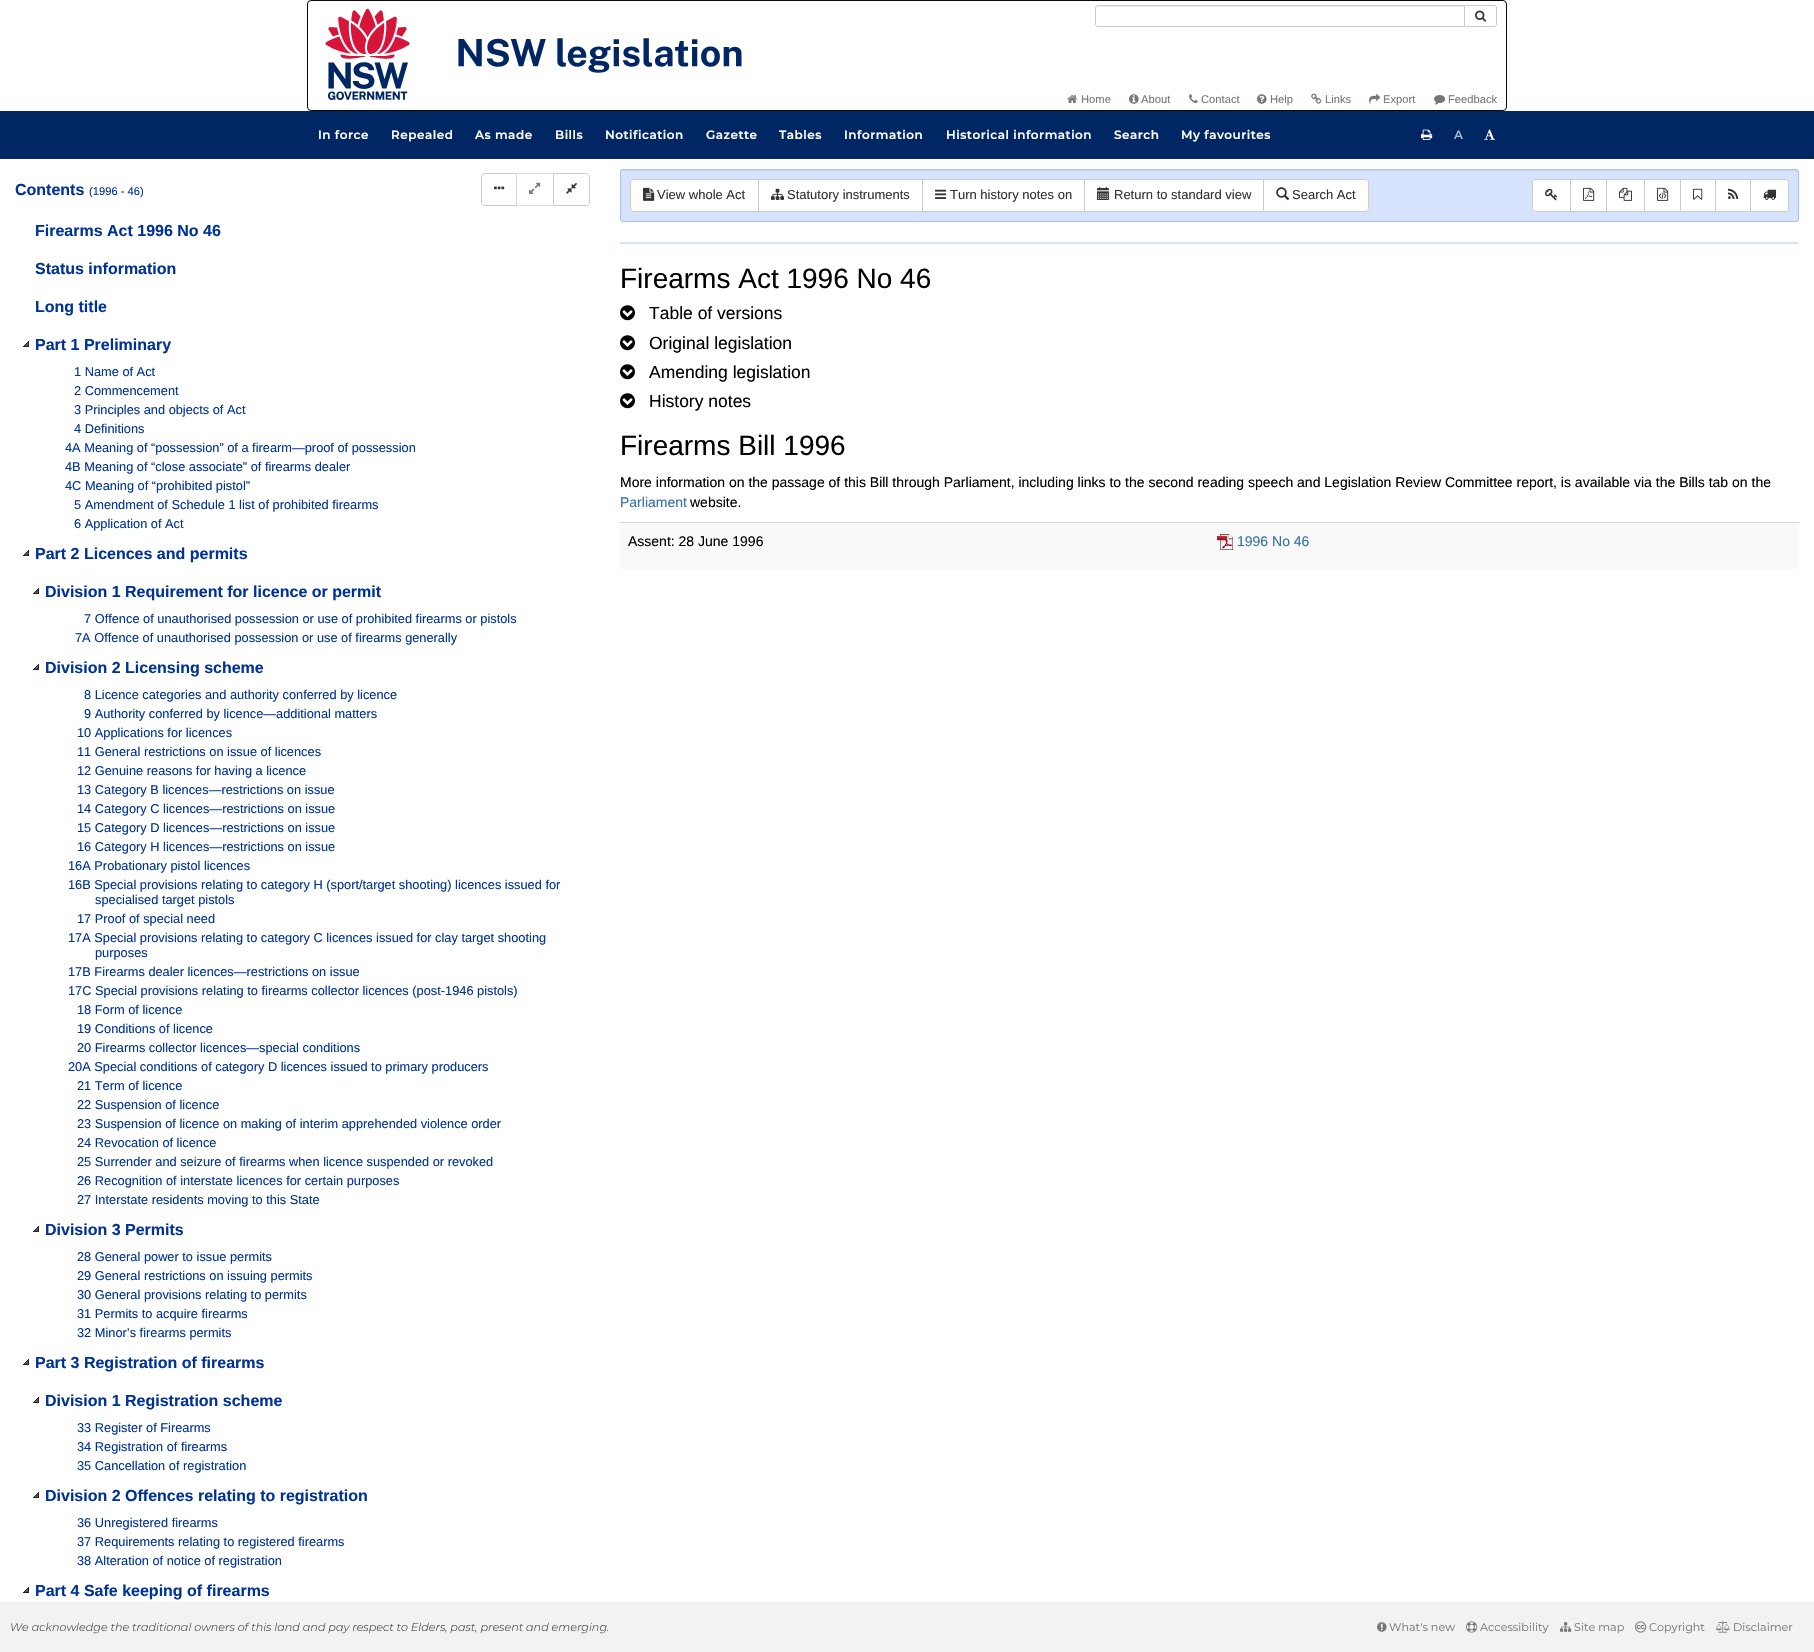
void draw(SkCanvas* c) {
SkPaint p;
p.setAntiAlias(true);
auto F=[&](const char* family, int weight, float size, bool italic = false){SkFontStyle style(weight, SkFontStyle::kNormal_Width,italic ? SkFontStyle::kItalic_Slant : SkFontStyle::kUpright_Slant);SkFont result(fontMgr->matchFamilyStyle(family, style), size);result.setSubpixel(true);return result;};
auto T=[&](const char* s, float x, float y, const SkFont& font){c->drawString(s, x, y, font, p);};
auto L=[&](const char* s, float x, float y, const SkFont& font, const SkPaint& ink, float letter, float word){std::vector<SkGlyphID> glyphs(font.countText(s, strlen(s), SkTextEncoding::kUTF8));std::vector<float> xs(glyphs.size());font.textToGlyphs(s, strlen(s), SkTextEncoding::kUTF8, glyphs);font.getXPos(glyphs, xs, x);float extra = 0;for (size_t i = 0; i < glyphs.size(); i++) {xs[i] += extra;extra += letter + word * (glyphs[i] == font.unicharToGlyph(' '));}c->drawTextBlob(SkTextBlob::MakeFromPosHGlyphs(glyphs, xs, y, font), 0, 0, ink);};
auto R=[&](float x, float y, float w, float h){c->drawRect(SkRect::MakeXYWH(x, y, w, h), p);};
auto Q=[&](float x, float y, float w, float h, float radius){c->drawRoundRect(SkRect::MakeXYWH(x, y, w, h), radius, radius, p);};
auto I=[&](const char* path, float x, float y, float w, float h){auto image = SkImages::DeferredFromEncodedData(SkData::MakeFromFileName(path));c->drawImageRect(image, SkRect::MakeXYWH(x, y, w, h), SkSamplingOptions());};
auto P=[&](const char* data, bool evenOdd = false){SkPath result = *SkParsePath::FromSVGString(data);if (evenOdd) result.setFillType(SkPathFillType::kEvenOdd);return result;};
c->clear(0xffffffff);
p.setStroke(true);
p.setStrokeWidth(1);
p.setColor(0xff080808);
c->drawRoundRect(SkRect::MakeXYWH(307.5,.5,1199,110),3.5,3.5,p);
I("1.png",325,8,417,92);
p.setColor(0xffcccccc);
c->drawPath(P("M1464.5 5.5h29.5c1.5 0 2.5 1 2.5 2.5v16c0 1.5-1 2.5-2.5 2.5h-29.5z"),p);
p.setStroke(false);
p.setColor(0xffffffff);
c->drawPath(P("M1098 5h367v22h-367c-1.5 0-3-1.5-3-3v-16c0-1.5 1.5-3 3-3z"),p);
p.setColor(0xffececec);
c->drawPath(P("M1098 7h366v-1h-366c-2 0-2 2-2 3c0-1 1-2 2-2z"),p);
p.setStroke(true);
p.setColor(0xffcccccc);
c->drawPath(P("M1098 5.5h366.5v21h-366.5c-1.5 0-2.5-1-2.5-2.5v-16c0-1.5 1-2.5 2.5-2.5z"),p);
I("2.png",1475,10,12,12);
I("3.png",1067,95,11,8);
auto f1 = F("Liberation Sans",400,11.2);
p.setStroke(false);
p.setColor(0xff777777);
T("Home",1081,103,f1);
I("4.png",1129,94,10,10);
T("About",1141,103,f1);
I("5.png",1189,94,9,9);
T("Contact",1201,103,f1);
I("6.png",1257,94,10,10);
T("Help",1270,103,f1);
I("7.png",1311,93,11,11);
T("Links",1325,103,f1);
I("8.png",1369,93,12,11);
T("Export",1383,103,f1);
I("9.png",1434,95,12,10);
T("Feedback",1448,103,f1);
p.setColor(0xff002664);
R(0,111,1814,48);
auto f2 = F("Montserrat",600,12);
p.setColor(0xffffffff);
L("In force",318,139,f2,p,.5,0);
L("Repealed",391,139,f2,p,.5,0);
L("As made",475,139,f2,p,.5,0);
L("Bills",555,139,f2,p,.5,0);
L("Notification",605,139,f2,p,.5,0);
L("Gazette",706,139,f2,p,.5,0);
L("Tables",779,139,f2,p,.5,0);
L("Information",844,139,f2,p,.5,0);
L("Historical information",946,139,f2,p,.5,0);
L("Search",1114,139,f2,p,.5,0);
L("My favourites",1181,139,f2,p,.5,0);
I("10.png",1421,129,12,11);
p.setColor(0xffa6b3c9);
L("A",1454,139,f2,p,.5,0);
I("11.png",1484,129,12,11);
auto f3 = F("Liberation Sans",700,16);
p.setColor(0xff003399);
T("Contents",15,195,f3);
T("(1996 - 46)",89,195,f1);
p.setStroke(true);
p.setColor(0xffcccccc);
c->drawPath(P("M485 173.5h31.5v32h-31.5c-2 0-3.5-1.5-3.5-3.5v-25c0-2 1.5-3.5 3.5-3.5z"),p);
I("12.png",494,186,11,4);
p.setStroke(false);
p.setColor(0xa6ffffff);
R(516,173,1,33);
p.setStroke(true);
p.setColor(0xa6cccccc);
c->drawRect(SkRect::MakeXYWH(516.5,173.5,37,32),p);
I("13.png",529,182,12,12);
p.setStroke(false);
p.setColor(0xffffffff);
c->drawPath(P("M553.5 173.5h32.5c2 0 3.5 1.5 3.5 3.5v25c0 2-1.5 3.5-3.5 3.5h-32.5z"),p);
p.setStroke(true);
p.setColor(0xffcccccc);
c->drawPath(P("M553.5 173.5h32.5c2 0 3.5 1.5 3.5 3.5v25c0 2-1.5 3.5-3.5 3.5h-32.5z"),p);
I("14.png",566,183,11,11);
p.setStroke(false);
p.setColor(0xff003399);
T("Firearms Act 1996 No 46",35,236,f3);
T("Status information",35,274,f3);
T("Long title",35,312,f3);
I("15.png",23,341,6,6);
T("Part 1 Preliminary",35,350,f3);
auto f4 = F("Liberation Sans",400,12.8);
T("1 Name of Act",74,376,f4);
T("2 Commencement",74,395,f4);
T("3 Principles and objects of Act",74,414,f4);
T("4 Definitions",74,433,f4);
T("4A Meaning of “possession” of a firearm—proof of possession",65,452,f4);
T("4B Meaning of “close associate” of firearms dealer",65,471,f4);
T("4C Meaning of “prohibited pistol”",65,490,f4);
T("5 Amendment of Schedule 1 list of prohibited firearms",74,509,f4);
T("6 Application of Act",74,528,f4);
I("15.png",23,550,6,6);
T("Part 2 Licences and permits",35,559,f3);
I("15.png",33,588,6,6);
T("Division 1 Requirement for licence or permit",45,597,f3);
T("7 Offence of unauthorised possession or use of prohibited firearms or pistols",84,623,f4);
T("7A Offence of unauthorised possession or use of firearms generally",75,642,f4);
I("15.png",33,664,6,6);
T("Division 2 Licensing scheme",45,673,f3);
T("8 Licence categories and authority conferred by licence",84,699,f4);
T("9 Authority conferred by licence—additional matters",84,718,f4);
T("10 Applications for licences",77,737,f4);
T("11 General restrictions on issue of licences",77,756,f4);
T("12 Genuine reasons for having a licence",77,775,f4);
T("13 Category B licences—restrictions on issue",77,794,f4);
T("14 Category C licences—restrictions on issue",77,813,f4);
T("15 Category D licences—restrictions on issue",77,832,f4);
T("16 Category H licences—restrictions on issue",77,851,f4);
T("16A Probationary pistol licences",68,870,f4);
T("16B Special provisions relating to category H (sport/target shooting) licences issued for",68,889,f4);
T("specialised target pistols",95,904,f4);
T("17 Proof of special need",77,923,f4);
T("17A Special provisions relating to category C licences issued for clay target shooting",68,942,f4);
T("purposes",95,957,f4);
T("17B Firearms dealer licences—restrictions on issue",68,976,f4);
T("17C Special provisions relating to firearms collector licences (post-1946 pistols)",68,995,f4);
T("18 Form of licence",77,1014,f4);
T("19 Conditions of licence",77,1033,f4);
T("20 Firearms collector licences—special conditions",77,1052,f4);
T("20A Special conditions of category D licences issued to primary producers",68,1071,f4);
T("21 Term of licence",77,1090,f4);
T("22 Suspension of licence",77,1109,f4);
T("23 Suspension of licence on making of interim apprehended violence order",77,1128,f4);
T("24 Revocation of licence",77,1147,f4);
T("25 Surrender and seizure of firearms when licence suspended or revoked",77,1166,f4);
T("26 Recognition of interstate licences for certain purposes",77,1185,f4);
T("27 Interstate residents moving to this State",77,1204,f4);
I("15.png",33,1226,6,6);
T("Division 3 Permits",45,1235,f3);
T("28 General power to issue permits",77,1261,f4);
T("29 General restrictions on issuing permits",77,1280,f4);
T("30 General provisions relating to permits",77,1299,f4);
T("31 Permits to acquire firearms",77,1318,f4);
T("32 Minor’s firearms permits",77,1337,f4);
I("15.png",23,1359,6,6);
T("Part 3 Registration of firearms",35,1368,f3);
I("15.png",33,1397,6,6);
T("Division 1 Registration scheme",45,1406,f3);
T("33 Register of Firearms",77,1432,f4);
T("34 Registration of firearms",77,1451,f4);
T("35 Cancellation of registration",77,1470,f4);
I("15.png",33,1492,6,6);
T("Division 2 Offences relating to registration",45,1501,f3);
T("36 Unregistered firearms",77,1527,f4);
T("37 Requirements relating to registered firearms",77,1546,f4);
T("38 Alteration of notice of registration",77,1565,f4);
I("15.png",23,1587,6,6);
T("Part 4 Safe keeping of firearms",35,1596,f3);
p.setColor(0xffd7e2fc);
Q(620,169,1179,53,3);
p.setColor(0xffccd7ef);
c->drawPath(P("M623 171h1173c1 0 2 1 2 2v-2l-2-1h-1173c-1 0-2 1-2 2v1c0-1 1-2 2-2z"),p);
p.setStroke(true);
p.setColor(0xffaebfe9);
c->drawRoundRect(SkRect::MakeXYWH(620.5,169.5,1178,52),2.5,2.5,p);
p.setStroke(false);
p.setColor(0xffffffff);
c->drawPath(P("M634 179.5h124.5v32h-124.5c-2 0-3.5-1.5-3.5-3.5v-25c0-2 1.5-3.5 3.5-3.5z"),p);
p.setStroke(true);
p.setColor(0xffcccccc);
c->drawPath(P("M634 179.5h124.5v32h-124.5c-2 0-3.5-1.5-3.5-3.5v-25c0-2 1.5-3.5 3.5-3.5z"),p);
I("16.png",643,187,12,14);
auto f5 = F("Liberation Sans",400,13);
p.setStroke(false);
p.setColor(0xff333333);
T("View whole Act",657,199,f5);
p.setColor(0xffffffff);
c->drawRect(SkRect::MakeXYWH(758.5,179.5,164,32),p);
p.setStroke(true);
p.setColor(0xffcccccc);
c->drawRect(SkRect::MakeXYWH(758.5,179.5,164,32),p);
I("17.png",771,188,13,12);
p.setStroke(false);
p.setColor(0xff333333);
T("Statutory instruments",787,199,f5);
p.setColor(0xffffffff);
c->drawRect(SkRect::MakeXYWH(922.5,179.5,162,32),p);
p.setStroke(true);
p.setColor(0xffcccccc);
c->drawRect(SkRect::MakeXYWH(922.5,179.5,162,32),p);
I("18.png",935,189,12,10);
p.setStroke(false);
p.setColor(0xff333333);
T("Turn history notes on",950,199,f5);
p.setColor(0xffffffff);
c->drawRect(SkRect::MakeXYWH(1084.5,179.5,179,32),p);
p.setStroke(true);
p.setColor(0xffcccccc);
c->drawRect(SkRect::MakeXYWH(1084.5,179.5,179,32),p);
I("19.png",1097,187,12,13);
p.setStroke(false);
p.setColor(0xff333333);
T("Return to standard view",1114,199,f5);
p.setColor(0xffffffff);
c->drawPath(P("M1263.5 179.5h101.5c2 0 3.5 1.5 3.5 3.5v25c0 2-1.5 3.5-3.5 3.5h-101.5z"),p);
p.setStroke(true);
p.setColor(0xffcccccc);
c->drawPath(P("M1263.5 179.5h101.5c2 0 3.5 1.5 3.5 3.5v25c0 2-1.5 3.5-3.5 3.5h-101.5z"),p);
I("20.png",1276,187,14,14);
p.setStroke(false);
p.setColor(0xff333333);
T("Search Act",1292,199,f5);
p.setColor(0xffffffff);
c->drawPath(P("M1536 179.5h34.5v32h-34.5c-2 0-3.5-1.5-3.5-3.5v-25c0-2 1.5-3.5 3.5-3.5z"),p);
p.setStroke(true);
p.setColor(0xffcccccc);
c->drawPath(P("M1536 179.5h34.5v32h-34.5c-2 0-3.5-1.5-3.5-3.5v-25c0-2 1.5-3.5 3.5-3.5z"),p);
I("21.png",1545,188,13,13);
p.setStroke(false);
p.setColor(0xffffffff);
c->drawRect(SkRect::MakeXYWH(1570.5,179.5,36,32),p);
p.setStroke(true);
p.setColor(0xffcccccc);
c->drawRect(SkRect::MakeXYWH(1570.5,179.5,36,32),p);
I("22.png",1583,187,12,14);
p.setStroke(false);
p.setColor(0xffffffff);
c->drawRect(SkRect::MakeXYWH(1606.5,179.5,38,32),p);
p.setStroke(true);
p.setColor(0xffcccccc);
c->drawRect(SkRect::MakeXYWH(1606.5,179.5,38,32),p);
I("23.png",1619,187,13,14);
p.setStroke(false);
p.setColor(0xffffffff);
c->drawRect(SkRect::MakeXYWH(1644.5,179.5,36,32),p);
p.setStroke(true);
p.setColor(0xffcccccc);
c->drawRect(SkRect::MakeXYWH(1644.5,179.5,36,32),p);
I("24.png",1657,187,12,14);
p.setStroke(false);
p.setColor(0xffffffff);
c->drawRect(SkRect::MakeXYWH(1680.5,179.5,35,32),p);
p.setStroke(true);
p.setColor(0xffcccccc);
c->drawRect(SkRect::MakeXYWH(1680.5,179.5,35,32),p);
I("25.png",1693,188,10,12);
p.setStroke(false);
p.setColor(0xffffffff);
c->drawRect(SkRect::MakeXYWH(1715.5,179.5,35,32),p);
p.setStroke(true);
p.setColor(0xffcccccc);
c->drawRect(SkRect::MakeXYWH(1715.5,179.5,35,32),p);
I("26.png",1728,188,11,11);
p.setStroke(false);
p.setColor(0xffffffff);
c->drawPath(P("M1750.5 179.5h34.5c2 0 3.5 1.5 3.5 3.5v25c0 2-1.5 3.5-3.5 3.5h-34.5z"),p);
p.setStroke(true);
p.setColor(0xffcccccc);
c->drawPath(P("M1750.5 179.5h34.5c2 0 3.5 1.5 3.5 3.5v25c0 2-1.5 3.5-3.5 3.5h-34.5z"),p);
I("27.png",1763,189,13,11);
p.setStroke(false);
p.setColor(0xffd7e2fc);
R(620,242,1179,2);
auto f6 = F("Liberation Sans",400,28);
p.setColor(0xff000000);
T("Firearms Act 1996 No 46",620,288,f6);
I("28.png",620,305,15,16);
auto f7 = F("Liberation Sans",400,17.5);
T("Table of versions",649,319,f7);
I("28.png",620,335,15,16);
T("Original legislation",649,349,f7);
I("28.png",620,364,15,16);
T("Amending legislation",649,378,f7);
I("28.png",620,393,15,16);
T("History notes",649,407,f7);
T("Firearms Bill 1996",620,455,f6);
auto f8 = F("Liberation Sans",400,14);
T("More information on the passage of this Bill through Parliament, including links to the second reading speech and Legislation Review Committee report, is available via the Bills tab on the",620,487,f8);
p.setColor(0xff3170ab);
T("Parliament",620,507,f8);
p.setColor(0xff000000);
T("website.",690,507,f8);
p.setColor(0xfff9f9f9);
R(620,523,1179,46);
p.setColor(0xff000000);
T("Assent: 28 June 1996",628,546,f8);
p.setColor(0xffdddddd);
R(619,522,1181,1);
I("29.png",1217,534,16,16);
p.setColor(0xff3170ab);
T("1996 No 46",1237,546,f8);
p.setColor(0xfff2f2f2);
R(0,1602,1814,50);
auto f9 = F("Montserrat",300,11.2,true);
p.setColor(0xff3d3d3d);
T("We acknowledge the traditional owners of this land and pay respect to Elders, past, present and emerging.",10,1631,f9);
I("30.png",1377,1622,10,10);
auto f10 = F("Montserrat",400,11.2);
p.setColor(0xff777777);
T("What's new",1389,1631,f10);
I("31.png",1466,1621,12,12);
T("Accessibility",1480,1631,f10);
I("32.png",1560,1622,12,10);
T("Site map",1574,1631,f10);
I("33.png",1635,1621,12,12);
T("Copyright",1649,1631,f10);
I("34.png",1716,1621,14,12);
T("Disclaimer",1733,1631,f10);
}
